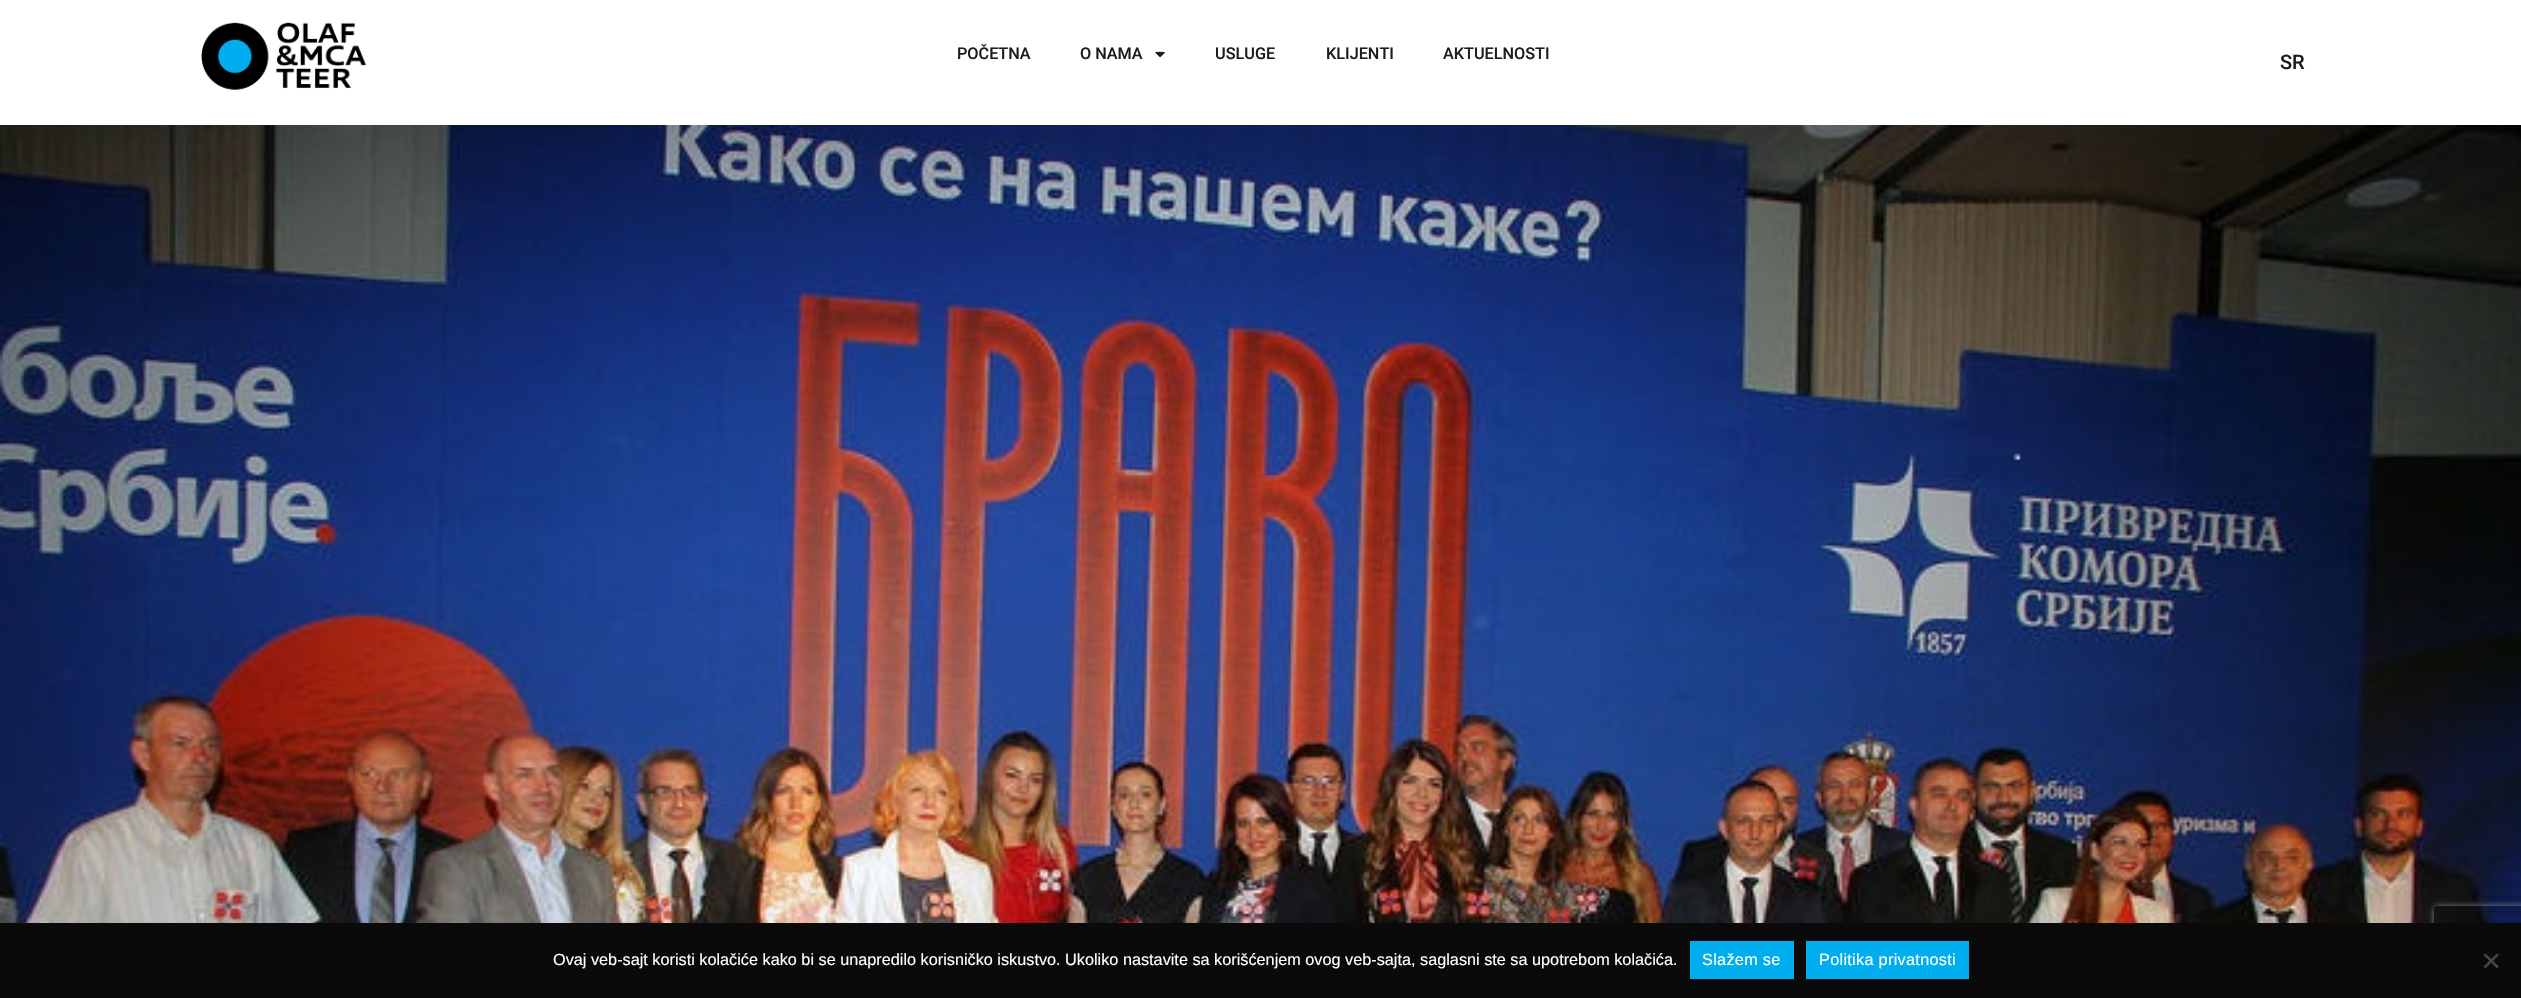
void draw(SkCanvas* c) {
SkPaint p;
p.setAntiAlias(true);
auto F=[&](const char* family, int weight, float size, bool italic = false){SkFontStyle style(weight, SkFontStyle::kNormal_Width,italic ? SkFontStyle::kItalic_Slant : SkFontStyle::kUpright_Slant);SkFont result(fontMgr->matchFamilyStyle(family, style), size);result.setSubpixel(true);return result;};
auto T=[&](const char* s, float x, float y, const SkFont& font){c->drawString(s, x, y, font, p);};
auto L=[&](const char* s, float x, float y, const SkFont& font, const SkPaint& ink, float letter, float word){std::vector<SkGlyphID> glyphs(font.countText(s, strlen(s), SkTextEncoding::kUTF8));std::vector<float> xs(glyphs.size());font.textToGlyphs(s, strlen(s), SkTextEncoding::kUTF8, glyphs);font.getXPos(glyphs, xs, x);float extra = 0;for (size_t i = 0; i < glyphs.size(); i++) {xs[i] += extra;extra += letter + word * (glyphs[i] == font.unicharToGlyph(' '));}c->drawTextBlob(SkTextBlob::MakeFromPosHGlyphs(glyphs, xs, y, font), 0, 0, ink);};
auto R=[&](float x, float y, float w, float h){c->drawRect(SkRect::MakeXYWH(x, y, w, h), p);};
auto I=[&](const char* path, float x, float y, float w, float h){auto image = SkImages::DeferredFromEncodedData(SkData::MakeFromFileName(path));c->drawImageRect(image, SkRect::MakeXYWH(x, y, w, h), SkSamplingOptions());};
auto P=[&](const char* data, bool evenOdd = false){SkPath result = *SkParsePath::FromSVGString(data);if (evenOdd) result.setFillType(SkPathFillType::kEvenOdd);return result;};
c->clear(0xffffffff);
I("1.png",201,22,166,68);
auto f1 = F("Roboto",500,16.25);
p.setColor(0xff1d1d1b);
T("POČETNA",957,59,f1);
T("O NAMA",1080,59,f1);
I("2.png",1155,51,10,7);
T("USLUGE",1215,59,f1);
T("KLIJENTI",1326,59,f1);
T("AKTUELNOSTI",1443,59,f1);
auto f2 = F("Roboto",500,20);
T("SR",2280,69,f2);
I("3.png",0,125,2521,798);
c->save();
c->clipPath(P("M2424 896h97v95h-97zm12.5 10h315c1.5 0 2.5 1 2.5 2.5v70c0 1.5-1 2.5-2.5 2.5h-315c-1.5 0-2.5-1-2.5-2.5v-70c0-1.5 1-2.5 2.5-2.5z",true),true);
p.setColor(0xff808080);
p.setMaskFilter(SkMaskFilter::MakeBlur(kNormal_SkBlurStyle, 3));
c->drawRoundRect(SkRect::MakeXYWH(2434,906,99,75),2.5,2.5,p);
p.setMaskFilter(nullptr);
c->restore();
p.setColor(0xff0a0a0a);
R(0,923,2521,75);
auto f3 = F("Liberation Sans",400,16.25);
p.setColor(0xffffffff);
T("Ovaj veb-sajt koristi kolačiće kako bi se unapredilo korisničko iskustvo. Ukoliko nastavite sa korišćenjem ovog veb-sajta, saglasni ste sa upotrebom kolačića.",553,965,f3);
p.setColor(0xff00aeef);
R(1690,941,104,38);
p.setColor(0xffffffff);
L("Slažem se",1702,965,f3,p,.3,0);
p.setColor(0xff00aeef);
R(1806,941,163,38);
p.setColor(0xffffffff);
L("Politika privatnosti",1819,965,f3,p,.3,0);
p.setColor(0xff454545);
c->drawPath(P("M2497 953.5l2 1.5l-13.5 13.5l-2-2z"),p);
c->drawPath(P("M2483.5 955l2-1.5l13.5 13l-2 2z"),p);
}
